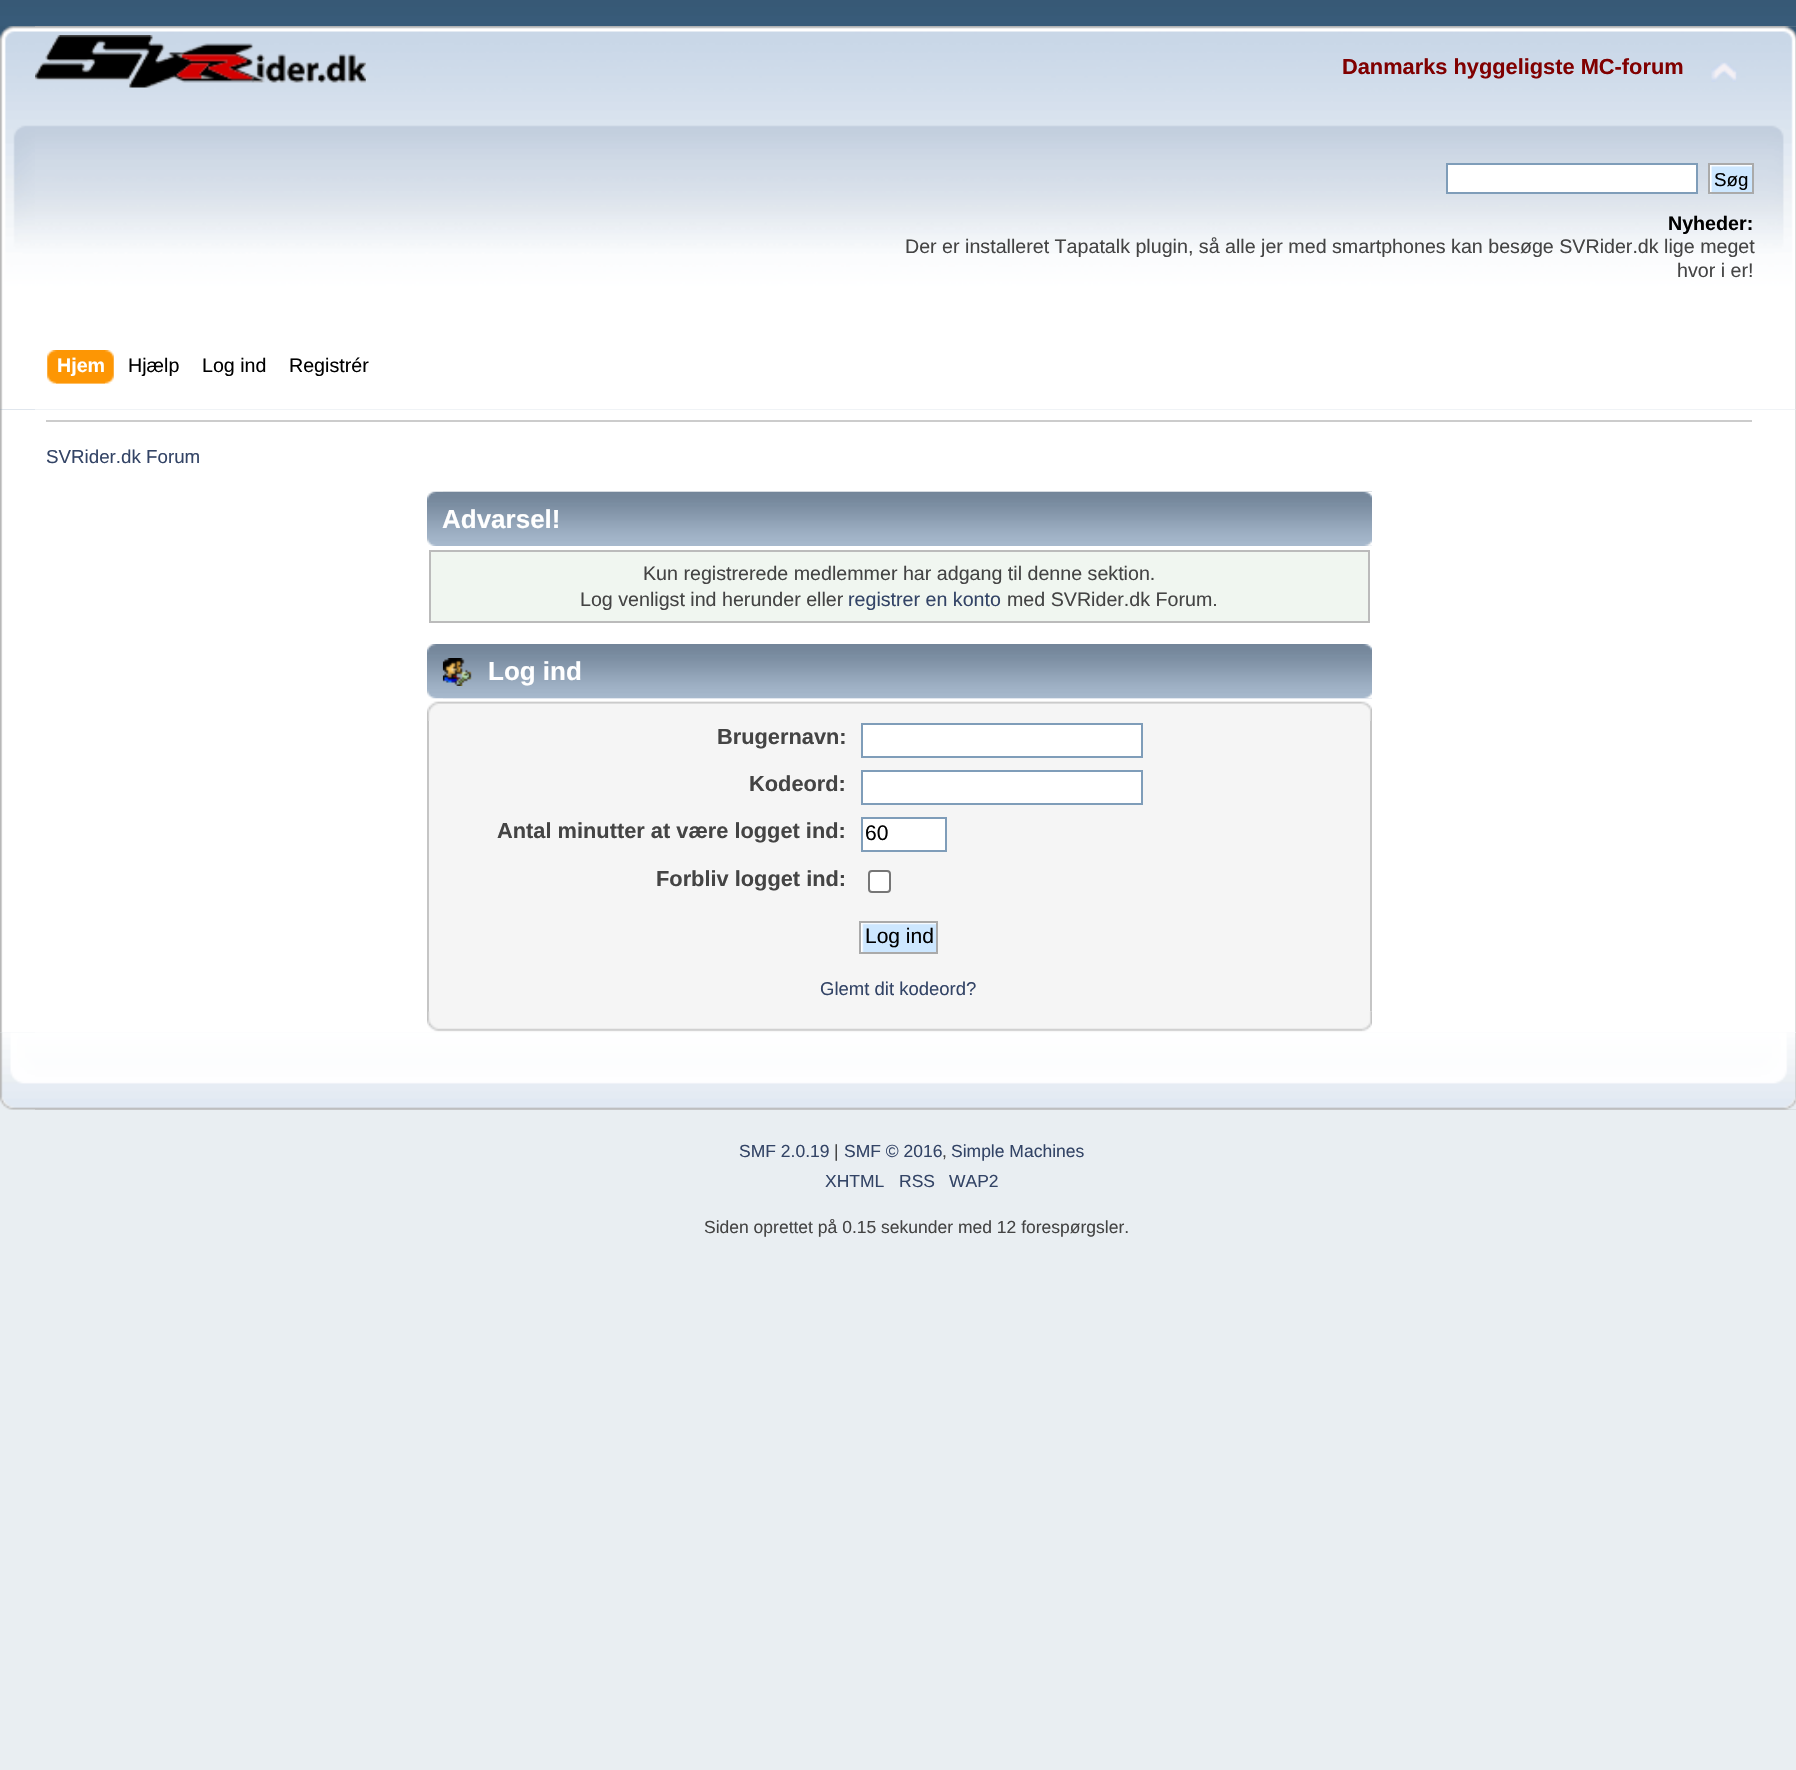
void draw(SkCanvas* c) {
SkPaint p;
p.setAntiAlias(true);
auto F=[&](const char* family, int weight, float size, bool italic = false){SkFontStyle style(weight, SkFontStyle::kNormal_Width,italic ? SkFontStyle::kItalic_Slant : SkFontStyle::kUpright_Slant);SkFont result(fontMgr->matchFamilyStyle(family, style), size);result.setSubpixel(true);return result;};
auto T=[&](const char* s, float x, float y, const SkFont& font){c->drawString(s, x, y, font, p);};
auto R=[&](float x, float y, float w, float h){c->drawRect(SkRect::MakeXYWH(x, y, w, h), p);};
auto I=[&](const char* path, float x, float y, float w, float h){auto image = SkImages::DeferredFromEncodedData(SkData::MakeFromFileName(path));c->drawImageRect(image, SkRect::MakeXYWH(x, y, w, h), SkSamplingOptions());};
c->clear(0xffe9eef2);
I("1.png",0,0,1796,410);
I("2.png",0,26,1796,384);
I("3.png",35,26,1761,384);
I("4.png",35,35,331,53);
auto f1 = F("Liberation Sans",700,21.8);
p.setColor(0xff800000);
T("Danmarks hyggeligste MC-forum",1342,74,f1);
I("5.png",1711,62,26,20);
p.setColor(0xffffffff);
c->drawRect(SkRect::MakeXYWH(1447,164,250,29),p);
p.setStroke(true);
p.setStrokeWidth(2);
p.setColor(0xff7f9db9);
c->drawRect(SkRect::MakeXYWH(1447,164,250,29),p);
I("6.png",1709,165,45,30);
p.setColor(0xffaaaaaa);
c->drawRect(SkRect::MakeXYWH(1709,164,44,29),p);
auto f2 = F("Liberation Sans",400,18.75);
p.setStroke(false);
p.setColor(0xff000000);
T("Søg",1714,186,f2);
auto f3 = F("Liberation Sans",700,19.65);
T("Nyheder:",1668,230,f3);
auto f4 = F("Liberation Sans",400,19.65);
p.setColor(0xff444444);
T("Der er installeret Tapatalk plugin, så alle jer med smartphones kan besøge SVRider.dk lige meget",905,253,f4);
T("hvor i er!",1677,277,f4);
I("7.png",56,350,58,34);
I("8.png",47,350,58,34);
p.setColor(0xffffffff);
T("Hjem",57,372,f3);
p.setColor(0xff000000);
T("Hjælp",128,372,f4);
T("Log ind",202,372,f4);
T("Registrér",289,372,f4);
I("9.png",0,409,1796,624);
I("10.png",1795,409,1,624);
p.setColor(0xffcccccc);
R(46,420,1706,2);
p.setColor(0xff334466);
T("SVRider.dk Forum",46,463,f2);
I("11.png",427,491,945,55);
I("12.png",443,491,929,55);
auto f5 = F("Liberation Sans",700,26);
p.setColor(0xffffffff);
T("Advarsel!",442,528,f5);
p.setColor(0xfff0f6f0);
c->drawRect(SkRect::MakeXYWH(430,551,939,71),p);
p.setStroke(true);
p.setColor(0xffbbbbbb);
c->drawRect(SkRect::MakeXYWH(430,551,939,71),p);
p.setStroke(false);
p.setColor(0xff444444);
T("Kun registrerede medlemmer har adgang til denne sektion.",643,580,f4);
T("Log venligst ind herunder eller",580,606,f4);
p.setColor(0xff334466);
T("registrer en konto",848,606,f4);
p.setColor(0xff444444);
T("med SVRider.dk Forum.",1007,606,f4);
I("13.png",427,644,945,55);
I("14.png",443,644,929,55);
I("15.png",442,658,30,28);
p.setColor(0xffffffff);
T("Log ind",488,680,f5);
I("16.png",427,701,934,20);
I("17.png",1361,701,11,20);
p.setColor(0xfff5f5f5);
R(429,721,941,291);
p.setColor(0xffc5c5c5);
R(1370,721,2,291);
R(427,721,2,291);
p.setColor(0xff444444);
T("Brugernavn:",717,744,f1);
p.setColor(0xffffffff);
c->drawRect(SkRect::MakeXYWH(862,724,280,33),p);
p.setStroke(true);
p.setColor(0xff7f9db9);
c->drawRect(SkRect::MakeXYWH(862,724,280,33),p);
p.setStroke(false);
p.setColor(0xff444444);
T("Kodeord:",749,791,f1);
p.setColor(0xffffffff);
c->drawRect(SkRect::MakeXYWH(862,771,280,33),p);
p.setStroke(true);
p.setColor(0xff7f9db9);
c->drawRect(SkRect::MakeXYWH(862,771,280,33),p);
p.setStroke(false);
p.setColor(0xff444444);
T("Antal minutter at være logget ind:",497,838,f1);
p.setColor(0xffffffff);
c->drawRect(SkRect::MakeXYWH(862,818,84,33),p);
p.setStroke(true);
p.setColor(0xff7f9db9);
c->drawRect(SkRect::MakeXYWH(862,818,84,33),p);
auto f6 = F("Liberation Sans",400,21);
p.setStroke(false);
p.setColor(0xff000000);
T("60",865,840,f6);
p.setColor(0xff444444);
T("Forbliv logget ind:",656,886,f1);
p.setColor(0xffffffff);
c->drawRoundRect(SkRect::MakeXYWH(869,871,21,21),3,3,p);
p.setStroke(true);
p.setColor(0xff767676);
c->drawRoundRect(SkRect::MakeXYWH(869,871,21,21),3,3,p);
I("18.png",861,923,75,29);
p.setColor(0xffaaaaaa);
c->drawRect(SkRect::MakeXYWH(860,922,77,31),p);
p.setStroke(false);
p.setColor(0xff000000);
T("Log ind",865,943,f6);
auto f7 = F("Liberation Sans",400,18.5);
p.setColor(0xff334466);
T("Glemt dit kodeord?",820,995,f7);
I("19.png",427,1011,945,21);
I("20.png",1362,1011,10,21);
I("21.png",0,1032,1796,78);
I("22.png",35,1032,1761,78);
auto f8 = F("Liberation Sans",400,17.5);
T("SMF 2.0.19",739,1157,f8);
p.setColor(0xff444444);
T("|",834,1157,f8);
p.setColor(0xff334466);
T("SMF © 2016",844,1157,f8);
p.setColor(0xff444444);
T(",",942,1157,f8);
p.setColor(0xff334466);
T("Simple Machines",951,1157,f8);
T("XHTML",825,1187,f8);
T("RSS",899,1187,f8);
T("WAP2",949,1187,f8);
p.setColor(0xff444444);
T("Siden oprettet på 0.15 sekunder med 12 forespørgsler.",704,1233,f8);
}
